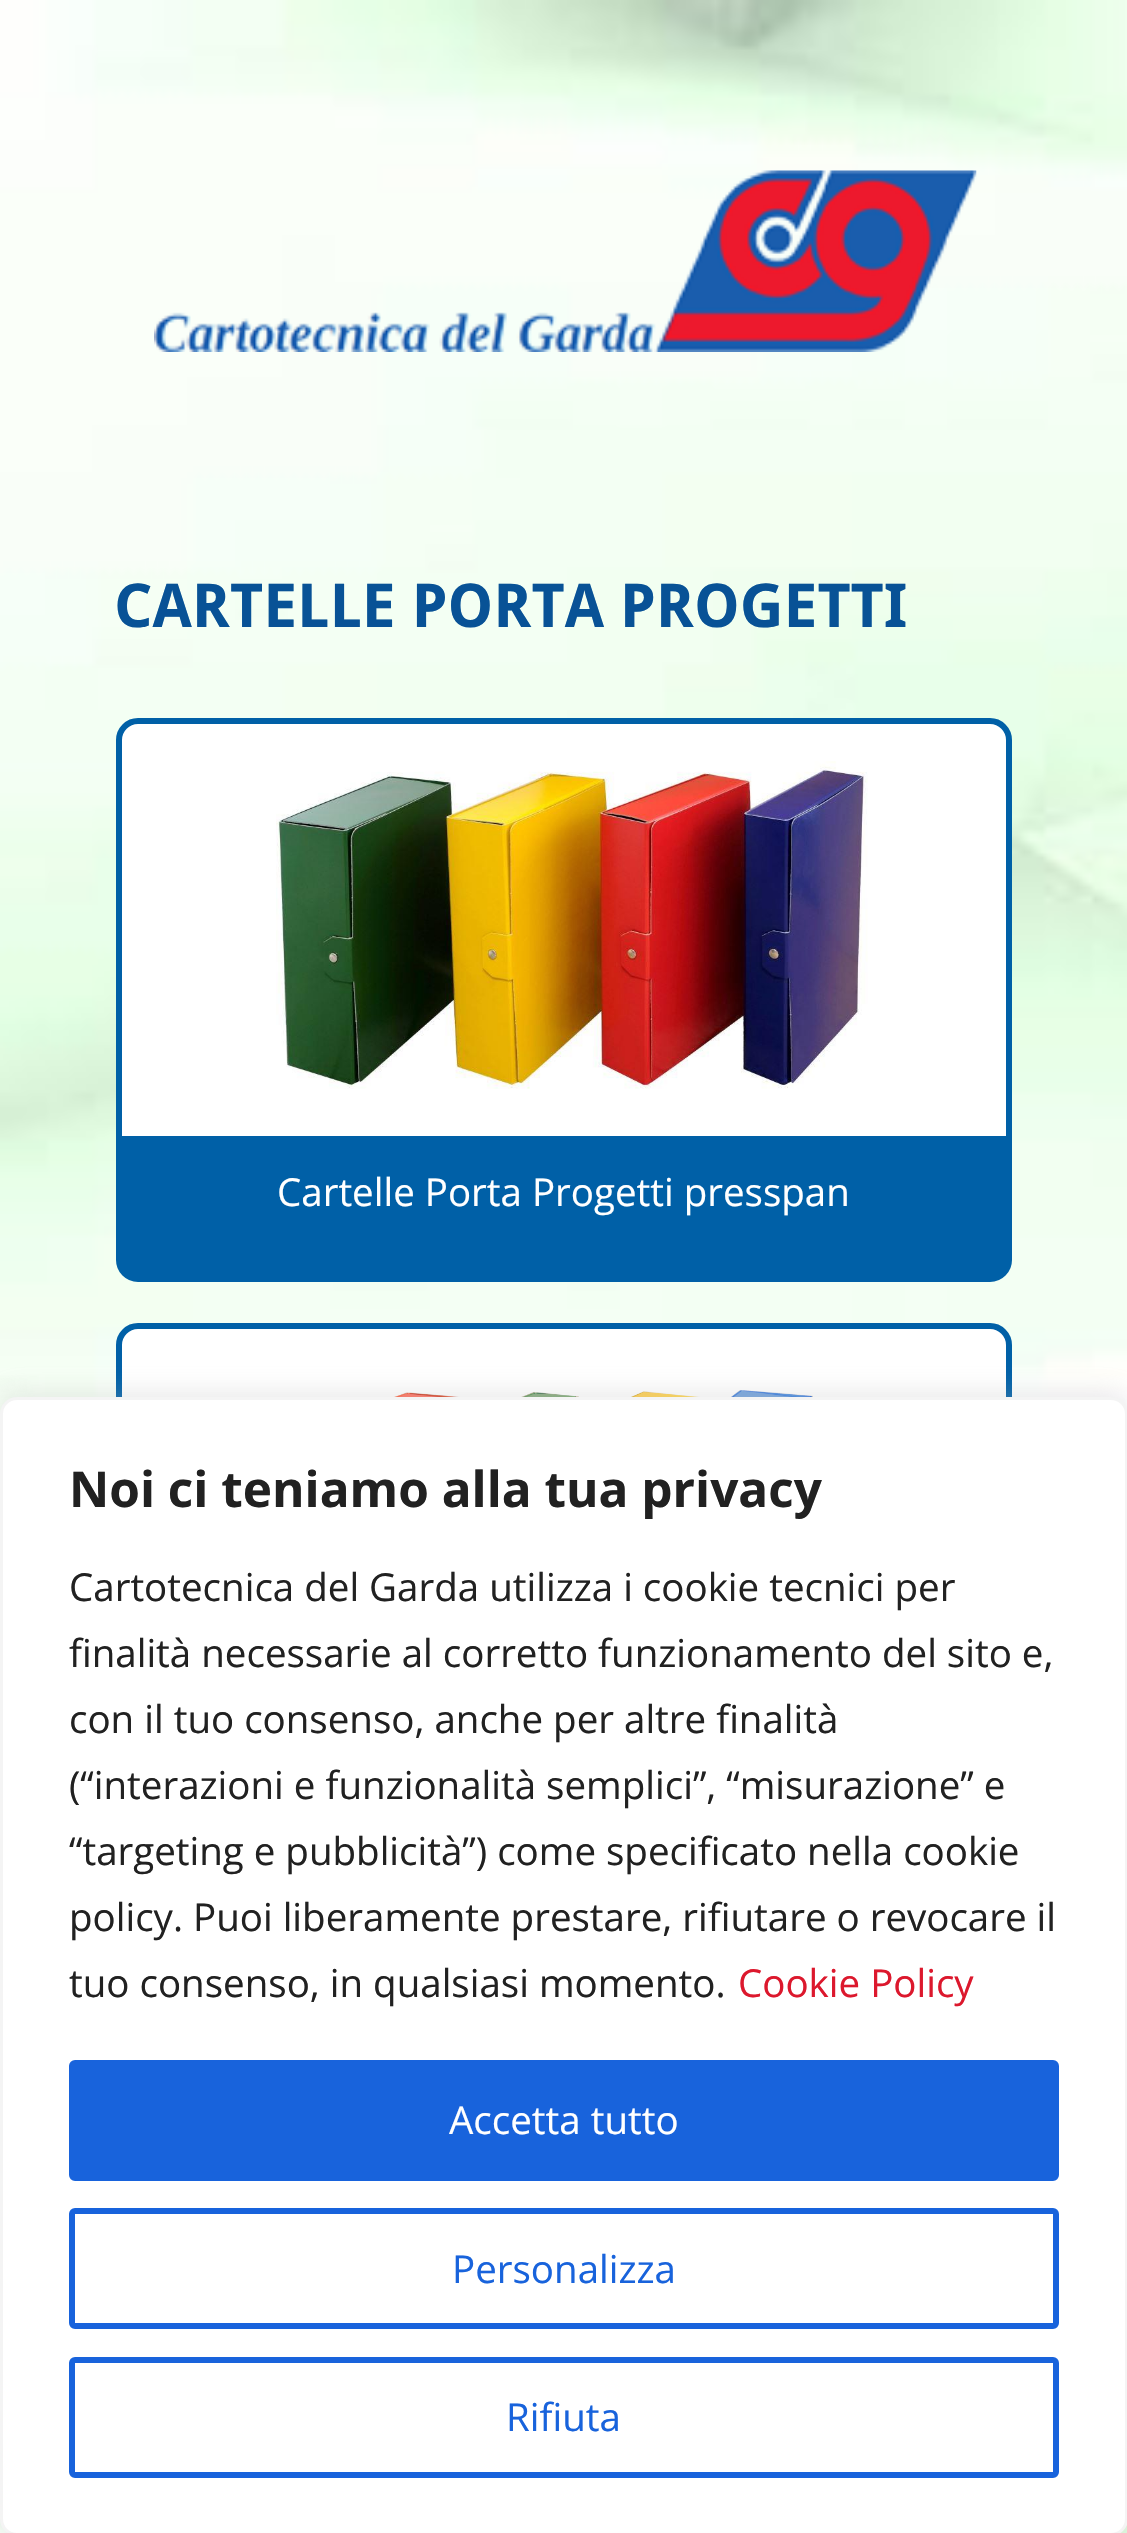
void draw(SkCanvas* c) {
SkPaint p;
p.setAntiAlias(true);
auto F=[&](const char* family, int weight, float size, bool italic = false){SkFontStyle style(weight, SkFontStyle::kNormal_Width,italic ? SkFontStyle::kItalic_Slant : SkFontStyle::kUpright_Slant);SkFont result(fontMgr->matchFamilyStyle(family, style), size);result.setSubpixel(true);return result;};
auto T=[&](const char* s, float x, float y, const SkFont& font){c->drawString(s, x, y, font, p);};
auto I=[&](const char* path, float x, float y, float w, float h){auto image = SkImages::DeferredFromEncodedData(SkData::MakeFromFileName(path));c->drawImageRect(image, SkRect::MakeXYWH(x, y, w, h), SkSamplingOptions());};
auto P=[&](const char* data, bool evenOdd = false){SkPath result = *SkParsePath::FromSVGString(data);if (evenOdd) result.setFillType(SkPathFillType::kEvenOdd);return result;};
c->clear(0xffffffff);
I("1.png",0,0,1127,2533);
I("2.png",154,170,823,182);
auto f1 = F("Droid Sans",700,60.5);
p.setColor(0xff085296);
T("CARTELLE PORTA PROGETTI",114,627,f1);
p.setColor(0xffffffff);
c->drawRoundRect(SkRect::MakeXYWH(119,721,890,558),19,19,p);
p.setStroke(true);
p.setStrokeWidth(6);
p.setColor(0xff0060a7);
c->drawRoundRect(SkRect::MakeXYWH(119,721,890,558),19,19,p);
I("3.png",276,761,592,328);
p.setStroke(false);
c->drawPath(P("M121 1136h886v132c0 4.5-3.5 8-8 8h-870c-4.5 0-8-3.5-8-8z"),p);
auto f2 = F("Open Sans",400,38.5);
p.setColor(0xffffffff);
T("Cartelle Porta Progetti presspan",277,1206,f2);
c->drawRoundRect(SkRect::MakeXYWH(119,1326,890,558),19,19,p);
p.setStroke(true);
p.setColor(0xff0060a7);
c->drawRoundRect(SkRect::MakeXYWH(119,1326,890,558),19,19,p);
I("4.png",394,1390,419,7);
p.setStroke(false);
p.setColor(0x4dacabab);
p.setMaskFilter(SkMaskFilter::MakeBlur(kNormal_SkBlurStyle, 14));
c->drawRoundRect(SkRect::MakeXYWH(0,1394,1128,1139),17,17,p);
p.setMaskFilter(nullptr);
p.setColor(0xffffffff);
c->drawRoundRect(SkRect::MakeXYWH(1.5,1398.5,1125,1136),15.5,15.5,p);
p.setStroke(true);
p.setStrokeWidth(3);
p.setColor(0xfff4f4f4);
c->drawRoundRect(SkRect::MakeXYWH(1.5,1398.5,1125,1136),15.5,15.5,p);
auto f3 = F("Open Sans",700,49.5);
p.setStroke(false);
p.setColor(0xff212121);
T("Noi ci teniamo alla tua privacy",69,1507,f3);
T("Cartotecnica del Garda utilizza i cookie tecnici per",69,1601,f2);
T("finalità necessarie al corretto funzionamento del sito e,",69,1667,f2);
T("con il tuo consenso, anche per altre finalità",69,1733,f2);
T("(“interazioni e funzionalità semplici”, “misurazione” e",69,1799,f2);
T("“targeting e pubblicità”) come specificato nella cookie",69,1865,f2);
T("policy. Puoi liberamente prestare, rifiutare o revocare il",69,1931,f2);
T("tuo consenso, in qualsiasi momento.",69,1997,f2);
p.setColor(0xffdc182d);
T("Cookie Policy",738,1997,f2);
p.setColor(0xff1863dc);
c->drawRoundRect(SkRect::MakeXYWH(72,2063,984,115),3,3,p);
p.setStroke(true);
p.setStrokeWidth(6);
c->drawRoundRect(SkRect::MakeXYWH(72,2063,984,115),3,3,p);
p.setStroke(false);
p.setColor(0xffffffff);
T("Accetta tutto",449,2134,f2);
p.setStroke(true);
p.setColor(0xff1863dc);
c->drawRoundRect(SkRect::MakeXYWH(72,2211,984,115),3,3,p);
p.setStroke(false);
T("Personalizza",452,2283,f2);
p.setStroke(true);
c->drawRoundRect(SkRect::MakeXYWH(72,2360,984,115),3,3,p);
p.setStroke(false);
T("Rifiuta",506,2431,f2);
}
